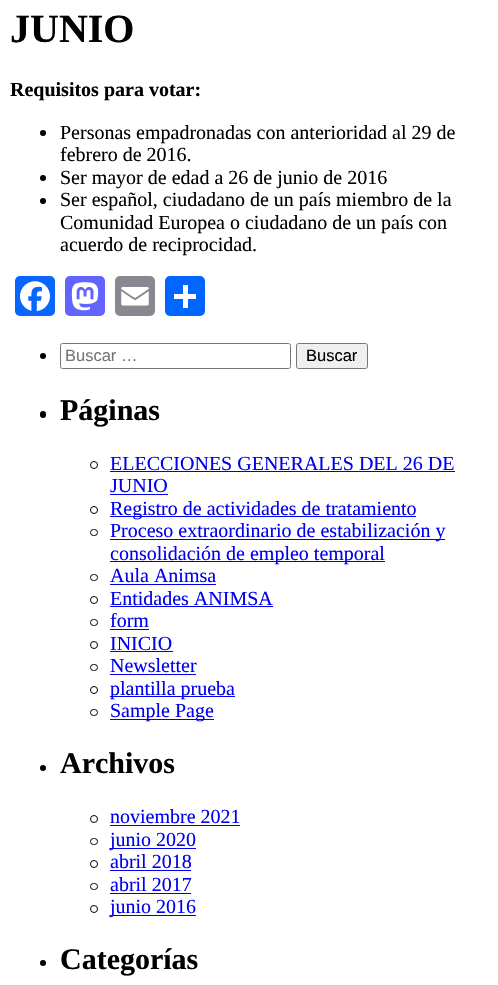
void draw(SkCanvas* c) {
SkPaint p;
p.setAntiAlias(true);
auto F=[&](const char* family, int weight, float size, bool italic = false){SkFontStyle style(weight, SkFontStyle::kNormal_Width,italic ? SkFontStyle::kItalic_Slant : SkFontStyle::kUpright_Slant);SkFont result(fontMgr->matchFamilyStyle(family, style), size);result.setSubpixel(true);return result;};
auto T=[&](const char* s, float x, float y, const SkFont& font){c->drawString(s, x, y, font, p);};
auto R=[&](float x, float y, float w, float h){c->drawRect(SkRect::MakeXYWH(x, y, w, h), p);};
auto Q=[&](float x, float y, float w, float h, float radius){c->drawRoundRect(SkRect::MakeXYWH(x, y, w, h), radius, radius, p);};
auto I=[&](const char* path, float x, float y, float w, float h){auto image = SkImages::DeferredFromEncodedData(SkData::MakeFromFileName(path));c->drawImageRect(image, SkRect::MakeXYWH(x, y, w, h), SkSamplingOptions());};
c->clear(0xffffffff);
auto f1 = F("Liberation Serif",700,40);
p.setColor(0xff000000);
T("JUNIO",10,42,f1);
auto f2 = F("Liberation Serif",700,20);
T("Requisitos para votar:",10,96,f2);
c->drawCircle(43,133,3,p);
auto f3 = F("Liberation Serif",400,20);
T("Personas empadronadas con anterioridad al 29 de",60,139,f3);
T("febrero de 2016.",60,161,f3);
c->drawCircle(43,178,3,p);
T("Ser mayor de edad a 26 de junio de 2016",60,184,f3);
c->drawCircle(43,201,3,p);
T("Ser español, ciudadano de un país miembro de la",60,206,f3);
T("Comunidad Europea o ciudadano de un país con",60,229,f3);
T("acuerdo de reciprocidad.",60,251,f3);
p.setColor(0xff0866ff);
Q(15,276,40,40,5);
I("1.png",20,281,30,31);
p.setColor(0xff6364ff);
Q(65,276,40,40,5);
I("2.png",71,282,28,29);
p.setColor(0xff888990);
Q(115,276,40,40,5);
I("3.png",121,287,28,19);
p.setColor(0xff0166ff);
Q(165,276,40,40,5);
p.setColor(0xffffffff);
R(183,285,5,23);
R(174,294,22,5);
p.setColor(0xff000000);
c->drawCircle(43,356,3,p);
p.setStroke(true);
p.setStrokeWidth(1);
p.setColor(0xff767676);
c->drawRoundRect(SkRect::MakeXYWH(60.5,343.5,230,25),2,2,p);
auto f4 = F("Liberation Sans",400,16.5);
p.setStroke(false);
p.setColor(0xff757575);
T("Buscar …",65,361,f4);
p.setColor(0xffefefef);
c->drawRoundRect(SkRect::MakeXYWH(296.5,343.5,71,25),2,2,p);
p.setStroke(true);
p.setColor(0xff767676);
c->drawRoundRect(SkRect::MakeXYWH(296.5,343.5,71,25),2,2,p);
p.setStroke(false);
p.setColor(0xff000000);
T("Buscar",306,361,f4);
Q(40,411,6,7,3);
auto f5 = F("Liberation Serif",700,30);
T("Páginas",60,420,f5);
p.setStroke(true);
c->drawCircle(94,465,3.5,p);
p.setStroke(false);
p.setColor(0xff0000ee);
T("ELECCIONES GENERALES DEL 26 DE",110,470,f3);
R(110,471,345,1);
T("JUNIO",110,492,f3);
R(110,494,58,1);
p.setStroke(true);
p.setColor(0xff000000);
c->drawCircle(94,510,3.5,p);
p.setStroke(false);
p.setColor(0xff0000ee);
R(110,516,306,1);
T("Registro de actividades de tratamiento",110,515,f3);
p.setStroke(true);
p.setColor(0xff000000);
c->drawRoundRect(SkRect::MakeXYWH(90.5,529.5,7,6),3,3,p);
p.setStroke(false);
p.setColor(0xff0000ee);
R(110,539,335,1);
T("Proceso extraordinario de estabilización y",110,537,f3);
R(110,561,275,1);
T("consolidación de empleo temporal",110,560,f3);
p.setStroke(true);
p.setColor(0xff000000);
c->drawRoundRect(SkRect::MakeXYWH(90.5,574.5,7,6),3,3,p);
p.setStroke(false);
p.setColor(0xff0000ee);
T("Aula Animsa",110,582,f3);
R(110,584,106,1);
p.setStroke(true);
p.setColor(0xff000000);
c->drawCircle(94,600,3.5,p);
p.setStroke(false);
p.setColor(0xff0000ee);
T("Entidades ANIMSA",110,605,f3);
R(110,606,163,1);
p.setStroke(true);
p.setColor(0xff000000);
c->drawRoundRect(SkRect::MakeXYWH(90.5,619.5,7,6),3,3,p);
p.setStroke(false);
p.setColor(0xff0000ee);
T("form",110,627,f3);
R(110,629,39,1);
p.setStroke(true);
p.setColor(0xff000000);
c->drawCircle(94,645,3.5,p);
p.setStroke(false);
p.setColor(0xff0000ee);
T("INICIO",110,650,f3);
R(110,651,63,1);
p.setStroke(true);
p.setColor(0xff000000);
c->drawRoundRect(SkRect::MakeXYWH(90.5,664.5,7,6),3,3,p);
p.setStroke(false);
p.setColor(0xff0000ee);
T("Newsletter",110,672,f3);
R(110,674,86,1);
p.setStroke(true);
p.setColor(0xff000000);
c->drawCircle(94,690,3.5,p);
p.setStroke(false);
p.setColor(0xff0000ee);
R(110,696,125,1);
T("plantilla prueba",110,695,f3);
p.setStroke(true);
p.setColor(0xff000000);
c->drawRoundRect(SkRect::MakeXYWH(90.5,709.5,7,6),3,3,p);
p.setStroke(false);
p.setColor(0xff0000ee);
R(110,719,104,1);
T("Sample Page",110,717,f3);
p.setColor(0xff000000);
c->drawCircle(43,768,3,p);
T("Archivos",60,773,f5);
p.setStroke(true);
c->drawCircle(94,819,3.5,p);
p.setStroke(false);
p.setColor(0xff0000ee);
T("noviembre 2021",110,823,f3);
R(110,825,130,1);
p.setStroke(true);
p.setColor(0xff000000);
c->drawRoundRect(SkRect::MakeXYWH(90.5,838.5,7,6),3,3,p);
p.setStroke(false);
p.setColor(0xff0000ee);
R(110,848,86,1);
T("junio 2020",110,846,f3);
p.setStroke(true);
p.setColor(0xff000000);
c->drawCircle(94,864,3.5,p);
p.setStroke(false);
p.setColor(0xff0000ee);
T("abril 2018",110,868,f3);
R(110,870,81,1);
p.setStroke(true);
p.setColor(0xff000000);
c->drawRoundRect(SkRect::MakeXYWH(90.5,883.5,7,6),3,3,p);
p.setStroke(false);
p.setColor(0xff0000ee);
T("abril 2017",110,891,f3);
R(110,893,81,1);
p.setStroke(true);
p.setColor(0xff000000);
c->drawCircle(94,909,3.5,p);
p.setStroke(false);
p.setColor(0xff0000ee);
R(110,915,86,1);
T("junio 2016",110,913,f3);
p.setColor(0xff000000);
c->drawCircle(43,963,3,p);
T("Categorías",60,969,f5);
}
